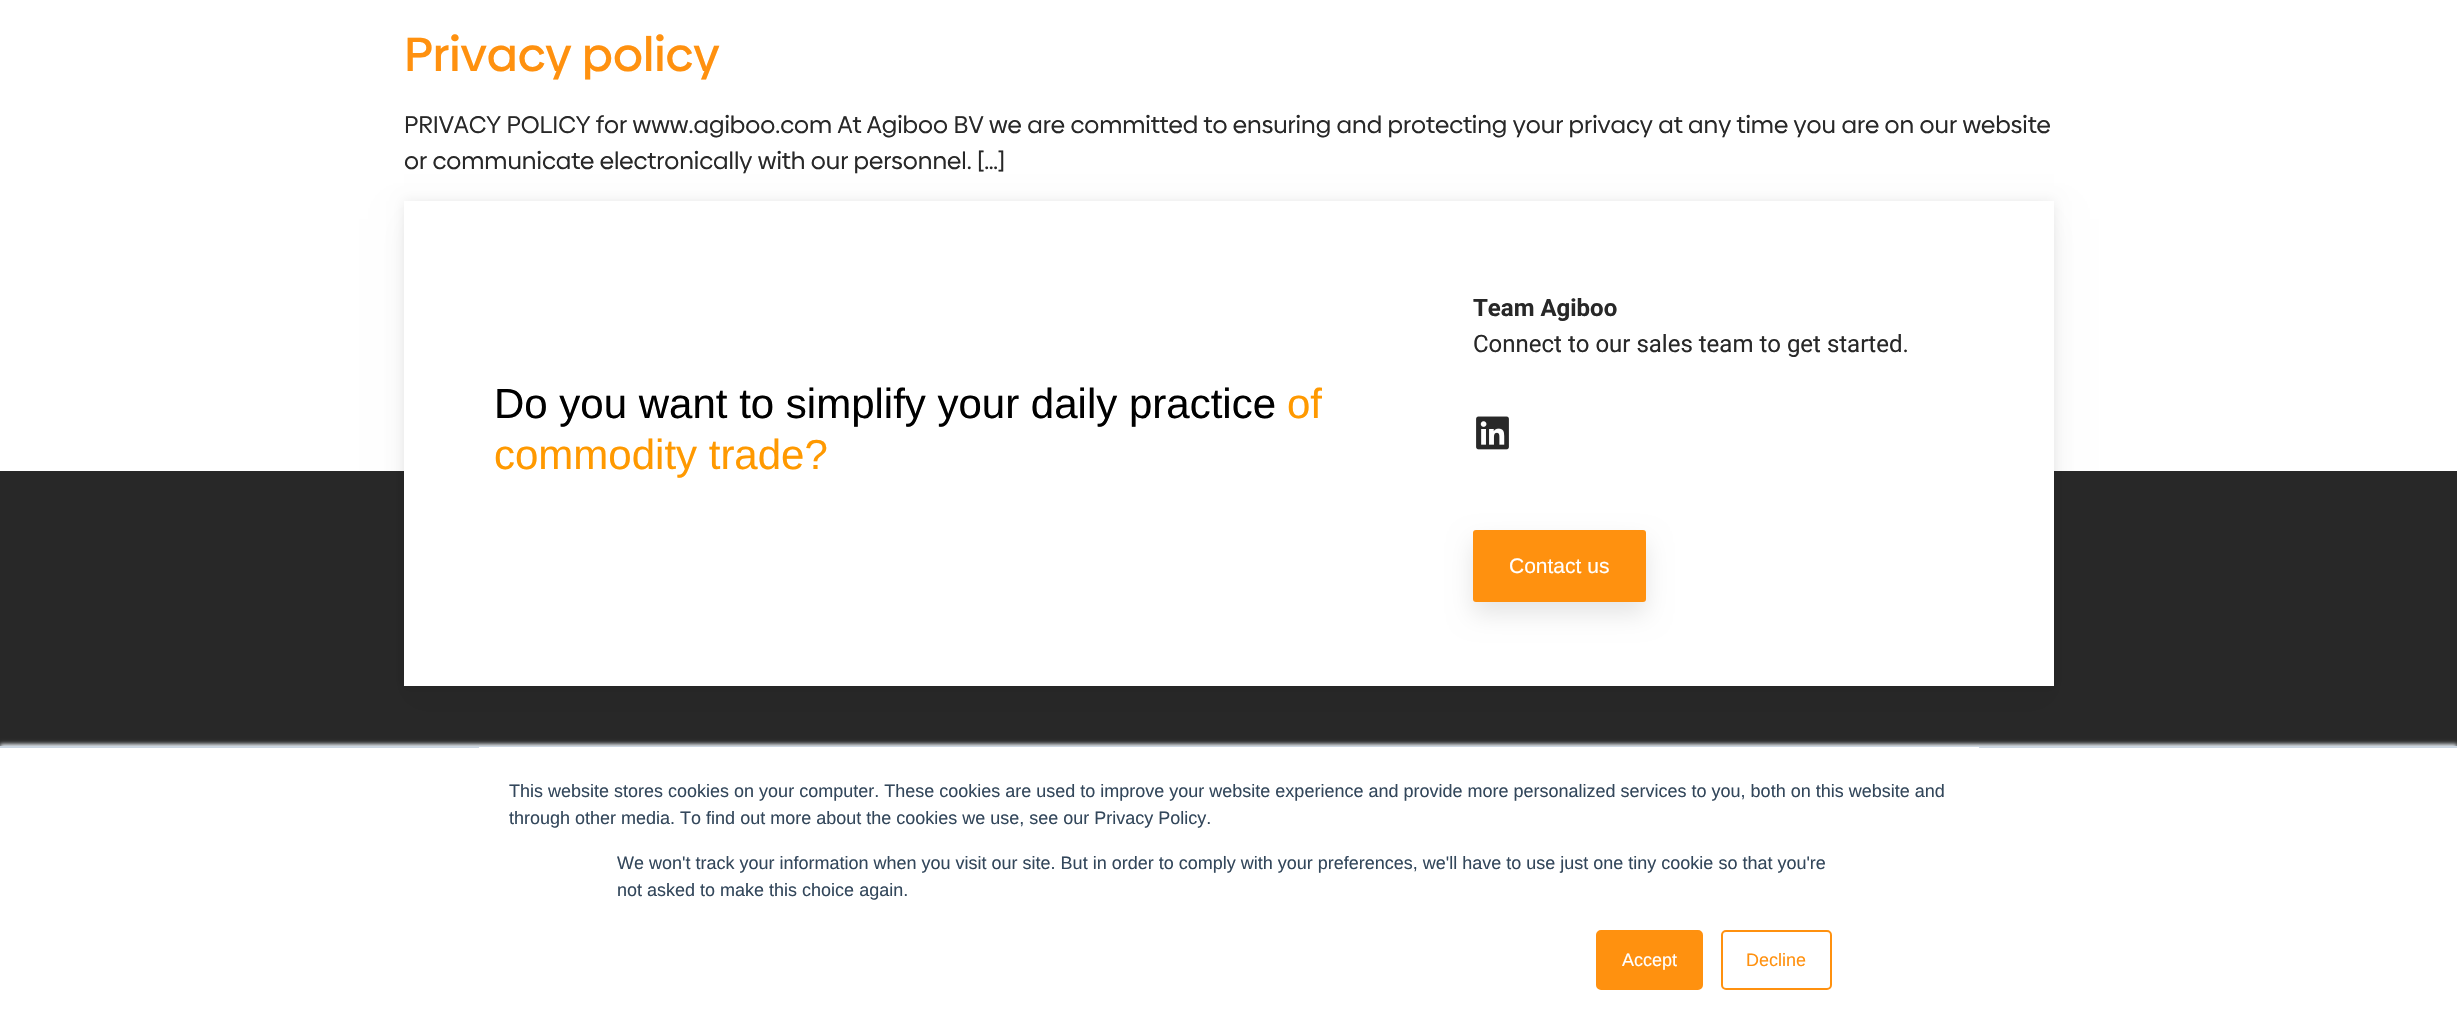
void draw(SkCanvas* c) {
SkPaint p;
p.setAntiAlias(true);
auto F=[&](const char* family, int weight, float size, bool italic = false){SkFontStyle style(weight, SkFontStyle::kNormal_Width,italic ? SkFontStyle::kItalic_Slant : SkFontStyle::kUpright_Slant);SkFont result(fontMgr->matchFamilyStyle(family, style), size);result.setSubpixel(true);return result;};
auto T=[&](const char* s, float x, float y, const SkFont& font){c->drawString(s, x, y, font, p);};
auto R=[&](float x, float y, float w, float h){c->drawRect(SkRect::MakeXYWH(x, y, w, h), p);};
auto Q=[&](float x, float y, float w, float h, float radius){c->drawRoundRect(SkRect::MakeXYWH(x, y, w, h), radius, radius, p);};
auto I=[&](const char* path, float x, float y, float w, float h){auto image = SkImages::DeferredFromEncodedData(SkData::MakeFromFileName(path));c->drawImageRect(image, SkRect::MakeXYWH(x, y, w, h), SkSamplingOptions());};
c->clear(0xffffffff);
auto f1 = F("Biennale",500,48);
p.setColor(0xffff910f);
T("Privacy policy",404,71,f1);
auto f2 = F("Biennale",400,24);
p.setColor(0xff282828);
T("PRIVACY POLICY for www.agiboo.com At Agiboo BV we are committed to ensuring and protecting your privacy at any time you are on our website",404,133,f2);
T("or communicate electronically with our personnel. […]",404,169,f2);
R(0,471,2457,275);
p.setColor(0x0a000000);
p.setMaskFilter(SkMaskFilter::MakeBlur(kNormal_SkBlurStyle, 15));
c->drawRect(SkRect::MakeXYWH(404,219,1650,485),p);
p.setMaskFilter(nullptr);
p.setColor(0x14000000);
p.setMaskFilter(SkMaskFilter::MakeBlur(kNormal_SkBlurStyle, 6));
c->drawRect(SkRect::MakeXYWH(404,201,1650,485),p);
p.setMaskFilter(nullptr);
p.setColor(0xffffffff);
R(404,201,1650,485);
auto f3 = F("Liberation Sans",400,42);
p.setColor(0xff000000);
T("Do you want to simplify your daily practice",494,418,f3);
p.setColor(0xffff9900);
T("of",1287,418,f3);
T("commodity trade?",494,469,f3);
auto f4 = F("Roboto",700,24);
p.setColor(0xff282828);
T("Team Agiboo",1473,316,f4);
auto f5 = F("Roboto",400,24);
T("Connect to our sales team to get started.",1473,352,f5);
I("1.png",1476,416,33,34);
p.setColor(0x1a000000);
p.setMaskFilter(SkMaskFilter::MakeBlur(kNormal_SkBlurStyle, 12));
c->drawRoundRect(SkRect::MakeXYWH(1473,542,173,72),3,3,p);
p.setMaskFilter(nullptr);
p.setColor(0xffff910f);
Q(1473,530,173,72,3);
auto f6 = F("Liberation Sans",400,21);
p.setColor(0xffffffff);
T("Contact us",1509,573,f6);
p.setColor(0xffeaf0f6);
p.setMaskFilter(SkMaskFilter::MakeBlur(kNormal_SkBlurStyle, 2));
c->drawRect(SkRect::MakeXYWH(0,744,2457,284),p);
p.setMaskFilter(nullptr);
p.setColor(0xffffffff);
R(0,748,2457,281);
p.setColor(0xffcbd6e2);
R(0,746,2457,2);
p.setColor(0xffffffff);
R(479,747,1500,1);
auto f7 = F("Liberation Sans",400,18);
p.setColor(0xff33475b);
T("This website stores cookies on your computer. These cookies are used to improve your website experience and provide more personalized services to you, both on this website and",509,797,f7);
T("through other media. To find out more about the cookies we use, see our Privacy Policy.",509,824,f7);
T("We won't track your information when you visit our site. But in order to comply with your preferences, we'll have to use just one tiny cookie so that you're",617,869,f7);
T("not asked to make this choice again.",617,896,f7);
p.setColor(0xffff910f);
c->drawRoundRect(SkRect::MakeXYWH(1597,931,105,58),4,4,p);
p.setStroke(true);
p.setStrokeWidth(2);
c->drawRoundRect(SkRect::MakeXYWH(1597,931,105,58),4,4,p);
p.setStroke(false);
p.setColor(0xffffffff);
T("Accept",1622,966,f7);
p.setStroke(true);
p.setColor(0xffff910f);
c->drawRoundRect(SkRect::MakeXYWH(1722,931,109,58),4,4,p);
p.setStroke(false);
T("Decline",1746,966,f7);
}
